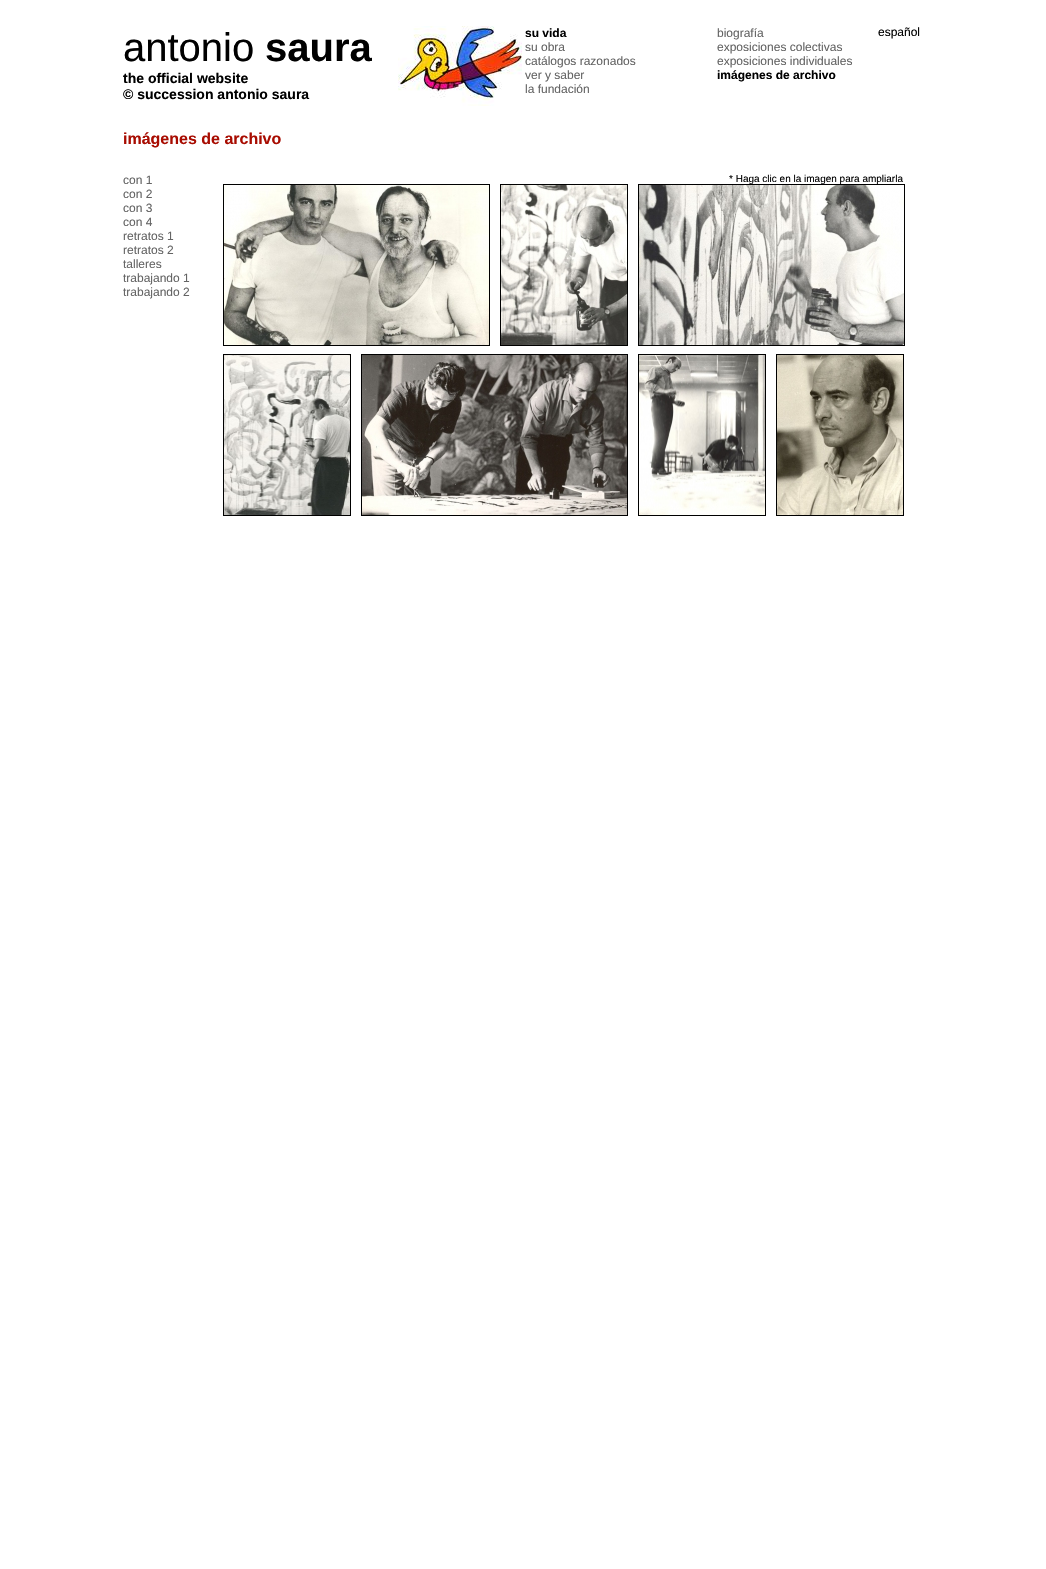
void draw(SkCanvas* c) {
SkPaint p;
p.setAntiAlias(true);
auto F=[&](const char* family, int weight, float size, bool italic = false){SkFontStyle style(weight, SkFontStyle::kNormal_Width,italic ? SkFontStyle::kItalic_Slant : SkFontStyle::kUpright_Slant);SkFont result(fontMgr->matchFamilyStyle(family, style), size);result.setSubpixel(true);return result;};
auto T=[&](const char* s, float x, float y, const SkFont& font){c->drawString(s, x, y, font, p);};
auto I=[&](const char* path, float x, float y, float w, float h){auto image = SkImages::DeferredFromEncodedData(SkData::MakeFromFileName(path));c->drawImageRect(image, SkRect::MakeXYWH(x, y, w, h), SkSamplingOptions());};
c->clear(0xffffffff);
auto f1 = F("Liberation Sans",400,40);
p.setColor(0xff000000);
T("antonio",123,61,f1);
auto f2 = F("Liberation Sans",700,40);
T("saura",265,61,f2);
auto f3 = F("Liberation Sans",700,14);
T("the official website",123,83,f3);
T("© succession antonio saura",123,99,f3);
I("1.png",398,26,124,80);
auto f4 = F("Liberation Sans",700,12);
T("su vida",525,37,f4);
auto f5 = F("Liberation Sans",400,12);
p.setColor(0xff646464);
T("su obra",525,51,f5);
T("catálogos razonados",525,65,f5);
T("ver y saber",525,79,f5);
T("la fundación",525,93,f5);
T("biografía",717,37,f5);
T("exposiciones colectivas",717,51,f5);
T("exposiciones individuales",717,65,f5);
p.setColor(0xff000000);
T("imágenes de archivo",717,79,f4);
T("español",878,36,f5);
auto f6 = F("Liberation Sans",700,16);
p.setColor(0xffa80c01);
T("imágenes de archivo",123,144,f6);
p.setColor(0xff646464);
T("con 1",123,184,f5);
T("con 2",123,198,f5);
T("con 3",123,212,f5);
T("con 4",123,226,f5);
T("retratos 1",123,240,f5);
T("retratos 2",123,254,f5);
T("talleres",123,268,f5);
T("trabajando 1",123,282,f5);
T("trabajando 2",123,296,f5);
p.setStroke(true);
p.setStrokeWidth(1);
p.setColor(0xff000000);
c->drawRect(SkRect::MakeXYWH(638.5,184.5,266,161),p);
auto f7 = F("Liberation Sans",400,10);
p.setStroke(false);
T("* Haga clic en la imagen para ampliarla",729,182,f7);
p.setStroke(true);
c->drawRect(SkRect::MakeXYWH(223.5,184.5,266,161),p);
I("2.png",224,185,265,160);
c->drawRect(SkRect::MakeXYWH(500.5,184.5,127,161),p);
I("3.png",501,185,126,160);
I("4.png",639,185,265,160);
c->drawRect(SkRect::MakeXYWH(223.5,354.5,127,161),p);
I("5.png",224,355,126,160);
c->drawRect(SkRect::MakeXYWH(361.5,354.5,266,161),p);
I("6.png",362,355,265,160);
c->drawRect(SkRect::MakeXYWH(638.5,354.5,127,161),p);
I("7.png",639,355,126,160);
c->drawRect(SkRect::MakeXYWH(776.5,354.5,127,161),p);
I("8.png",777,355,126,160);
}
